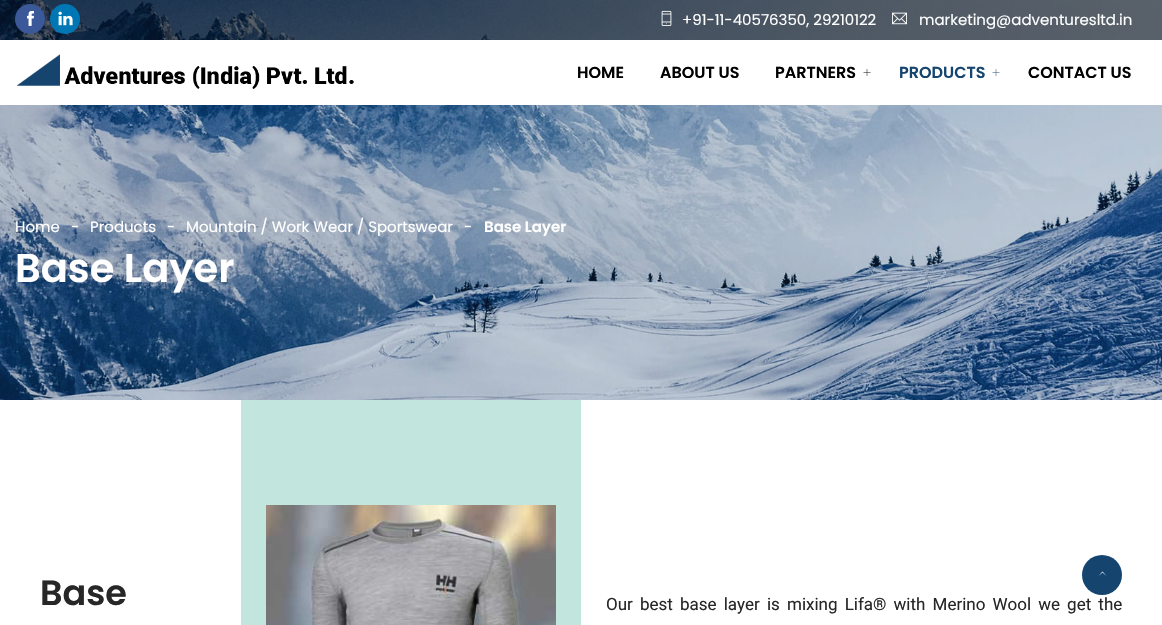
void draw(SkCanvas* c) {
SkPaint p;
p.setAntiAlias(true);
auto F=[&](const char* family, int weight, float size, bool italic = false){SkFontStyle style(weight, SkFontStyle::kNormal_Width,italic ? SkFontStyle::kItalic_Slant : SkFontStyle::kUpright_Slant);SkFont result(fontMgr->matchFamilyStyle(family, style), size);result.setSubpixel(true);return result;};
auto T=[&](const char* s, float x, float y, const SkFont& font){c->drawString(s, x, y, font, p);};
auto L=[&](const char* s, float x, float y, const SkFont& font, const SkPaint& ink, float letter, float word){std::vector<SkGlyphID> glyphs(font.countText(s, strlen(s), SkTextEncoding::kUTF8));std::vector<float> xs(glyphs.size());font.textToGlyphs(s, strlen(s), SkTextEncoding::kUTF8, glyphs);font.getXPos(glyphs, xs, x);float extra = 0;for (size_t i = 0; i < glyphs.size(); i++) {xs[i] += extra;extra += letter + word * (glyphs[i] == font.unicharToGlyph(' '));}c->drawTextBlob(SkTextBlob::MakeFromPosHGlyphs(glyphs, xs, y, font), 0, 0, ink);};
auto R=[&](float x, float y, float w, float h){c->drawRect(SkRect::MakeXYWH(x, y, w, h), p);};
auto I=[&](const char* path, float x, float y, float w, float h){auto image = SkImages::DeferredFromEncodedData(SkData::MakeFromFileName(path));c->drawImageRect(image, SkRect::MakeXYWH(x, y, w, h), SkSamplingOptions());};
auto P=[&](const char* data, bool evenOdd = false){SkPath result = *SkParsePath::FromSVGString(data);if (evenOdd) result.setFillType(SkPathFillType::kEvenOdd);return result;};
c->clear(0xffffffff);
I("8.png",0,0,1162,400);
p.setColor(0x80000000);
R(0,0,1162,40);
p.setColor(0xff3b5999);
c->drawCircle(30,19,15,p);
I("1.png",27,10,7,16);
p.setColor(0xff0077b5);
c->drawCircle(65,19,15,p);
I("2.png",58,11,15,15);
I("3.png",661,10,11,16);
auto f1 = F("Poppins",400,15);
p.setColor(0xffffffff);
T("+91-11-40576350, 29210122",682,25,f1);
I("4.png",892,12,15,13);
T("marketing@adventuresltd.in",919,25,f1);
R(0,40,1162,65);
I("5.png",16,54,338,35);
auto f2 = F("Poppins",600,16);
p.setColor(0xff000000);
T("HOME",577,78,f2);
T("ABOUT US",660,78,f2);
T("PARTNERS",775,78,f2);
I("6.png",863,69,8,7);
p.setColor(0xff15446f);
T("PRODUCTS",899,78,f2);
I("7.png",992,69,8,7);
p.setColor(0xff000000);
T("CONTACT US",1028,78,f2);
p.setColor(0xffffffff);
T("Home",15,232,f1);
T("-",71,232,f1);
T("Products",90,232,f1);
T("-",167,232,f1);
T("Mountain / Work Wear / Sportswear",186,232,f1);
T("-",464,232,f1);
auto f3 = F("Poppins",600,15);
T("Base Layer",484,232,f3);
auto f4 = F("Poppins",600,40);
T("Base Layer",15,282,f4);
auto f5 = F("Poppins",600,35);
p.setColor(0xff272727);
T("Base",40,605,f5);
p.setColor(0xffc2e5de);
R(241,400,340,225);
I("9.png",266,505,290,120);
auto f6 = F("Roboto",400,17);
p.setColor(0xff272727);
L("Our best base layer is mixing Lifa® with Merino Wool we get the",606,610,f6,p,0,2.9);
p.setColor(0xff15446f);
c->drawCircle(1102,575,20,p);
p.setColor(0xffffffff);
c->drawPath(P("M1106.5 576l-4-3.5l-4 3.5l4-4.5z"),p);
}
